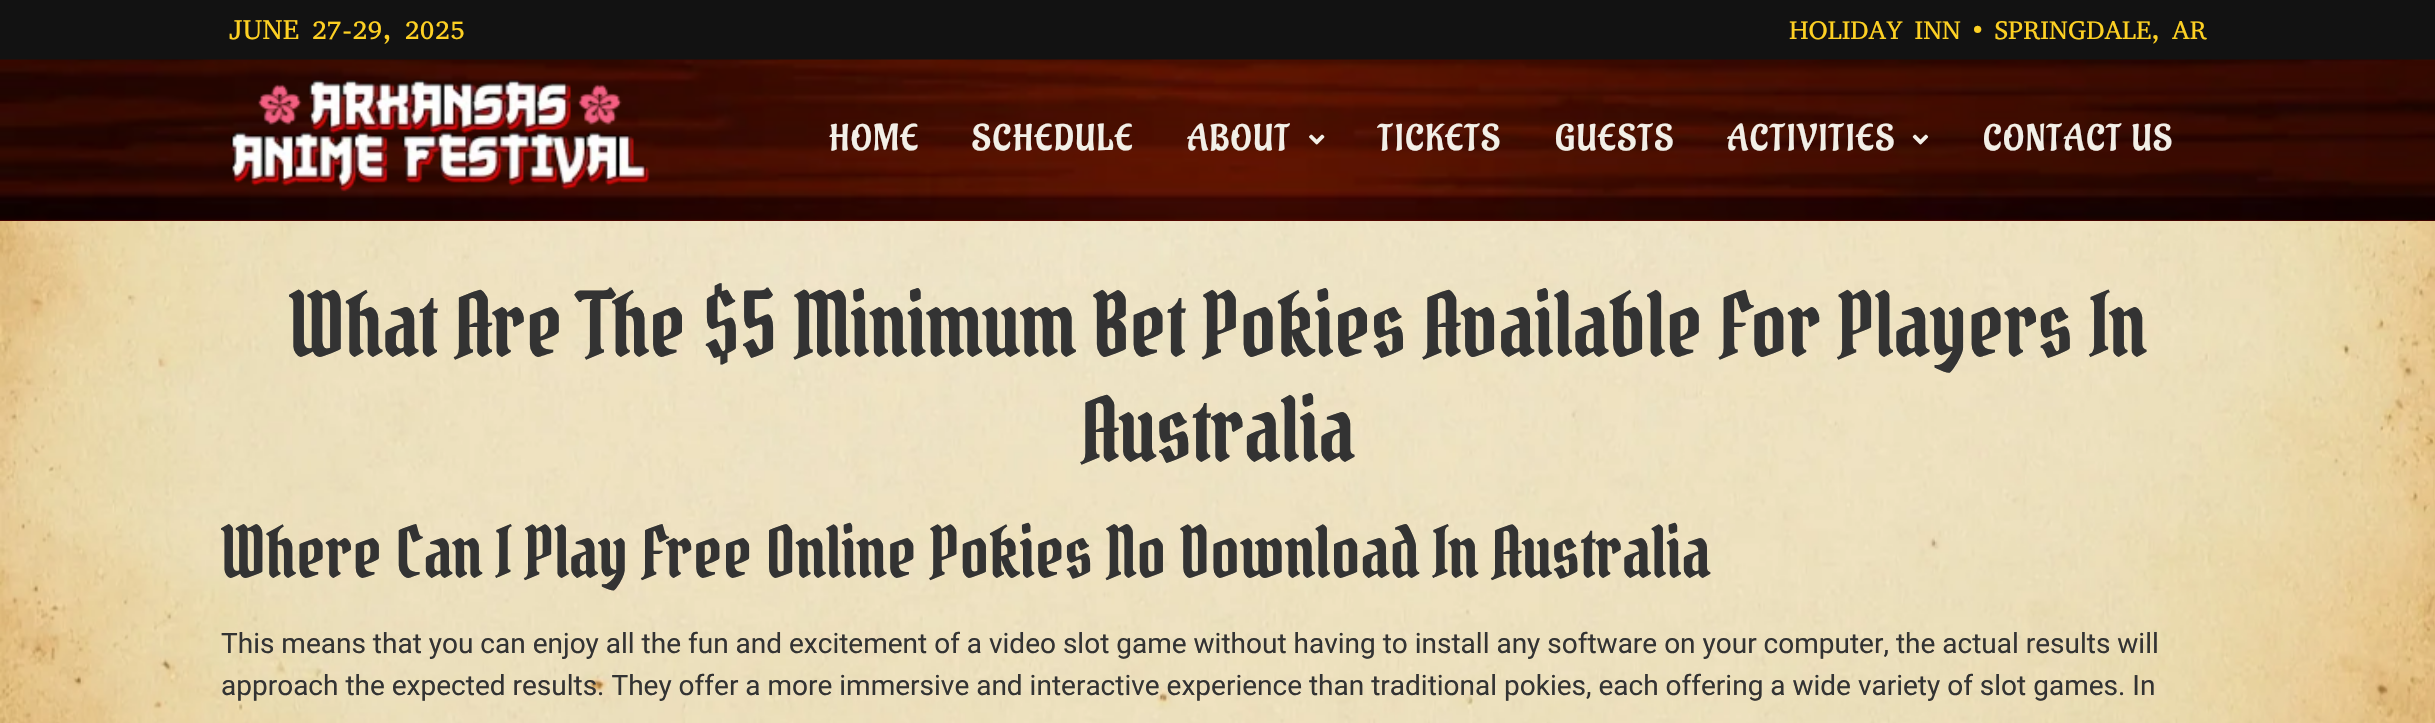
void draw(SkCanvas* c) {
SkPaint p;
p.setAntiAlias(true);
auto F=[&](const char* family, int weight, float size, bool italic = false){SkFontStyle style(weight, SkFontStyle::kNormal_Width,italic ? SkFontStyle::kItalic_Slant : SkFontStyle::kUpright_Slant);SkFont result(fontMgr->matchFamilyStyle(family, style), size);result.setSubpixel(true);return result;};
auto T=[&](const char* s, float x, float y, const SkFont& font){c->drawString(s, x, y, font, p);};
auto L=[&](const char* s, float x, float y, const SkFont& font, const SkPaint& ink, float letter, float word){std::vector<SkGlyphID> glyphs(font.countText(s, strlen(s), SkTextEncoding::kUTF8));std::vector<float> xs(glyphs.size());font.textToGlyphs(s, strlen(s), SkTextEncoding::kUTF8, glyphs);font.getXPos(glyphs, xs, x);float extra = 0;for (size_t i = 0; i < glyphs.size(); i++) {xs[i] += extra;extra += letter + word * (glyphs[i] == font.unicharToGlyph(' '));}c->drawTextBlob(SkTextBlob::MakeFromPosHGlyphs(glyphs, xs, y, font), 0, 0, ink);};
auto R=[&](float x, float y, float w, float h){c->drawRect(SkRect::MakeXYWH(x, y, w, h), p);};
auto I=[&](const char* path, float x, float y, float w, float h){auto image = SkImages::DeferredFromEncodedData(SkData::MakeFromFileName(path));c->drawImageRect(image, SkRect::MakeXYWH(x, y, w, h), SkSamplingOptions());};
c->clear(0xffffffff);
I("1.png",0,221,2435,502);
p.setColor(0xff121212);
R(0,0,2435,60);
auto f1 = F("Abyssinica SIL",400,28);
p.setColor(0xfffdd023);
T("JUNE 27-29, 2025",229,39,f1);
auto f2 = F("Abyssinica SIL",400,26.25);
T("HOLIDAY INN • SPRINGDALE, AR",1789,39,f2);
p.setColor(0xff5e0000);
R(0,220,2435,1);
I("2.png",0,59,2435,162);
I("3.png",230,79,420,113);
auto f3 = F("Aladin",400,36.75);
p.setColor(0xfff2efe7);
L("HOME",829,150,f3,p,1.75,0);
L("SCHEDULE",972,150,f3,p,1.75,0);
L("ABOUT",1187,150,f3,p,1.75,0);
I("4.png",1309,134,16,11);
L("TICKETS",1378,150,f3,p,1.75,0);
L("GUESTS",1555,150,f3,p,1.75,0);
L("ACTIVITIES",1727,150,f3,p,1.75,0);
I("5.png",1912,134,17,11);
L("CONTACT US",1983,150,f3,p,1.75,0);
auto f4 = F("Pirata One",400,87.5);
p.setColor(0xff333333);
T("What Are The $5 Minimum Bet Pokies Available For Players In",289,357,f4);
T("Australia",1081,462,f4);
auto f5 = F("Pirata One",400,70);
T("Where Can I Play Free Online Pokies No Download In Australia",221,578,f5);
auto f6 = F("Roboto",400,28);
T("This means that you can enjoy all the fun and excitement of a video slot game without having to install any software on your computer, the actual results will",221,653,f6);
T("approach the expected results. They offer a more immersive and interactive experience than traditional pokies, each offering a wide variety of slot games. In",221,695,f6);
}
